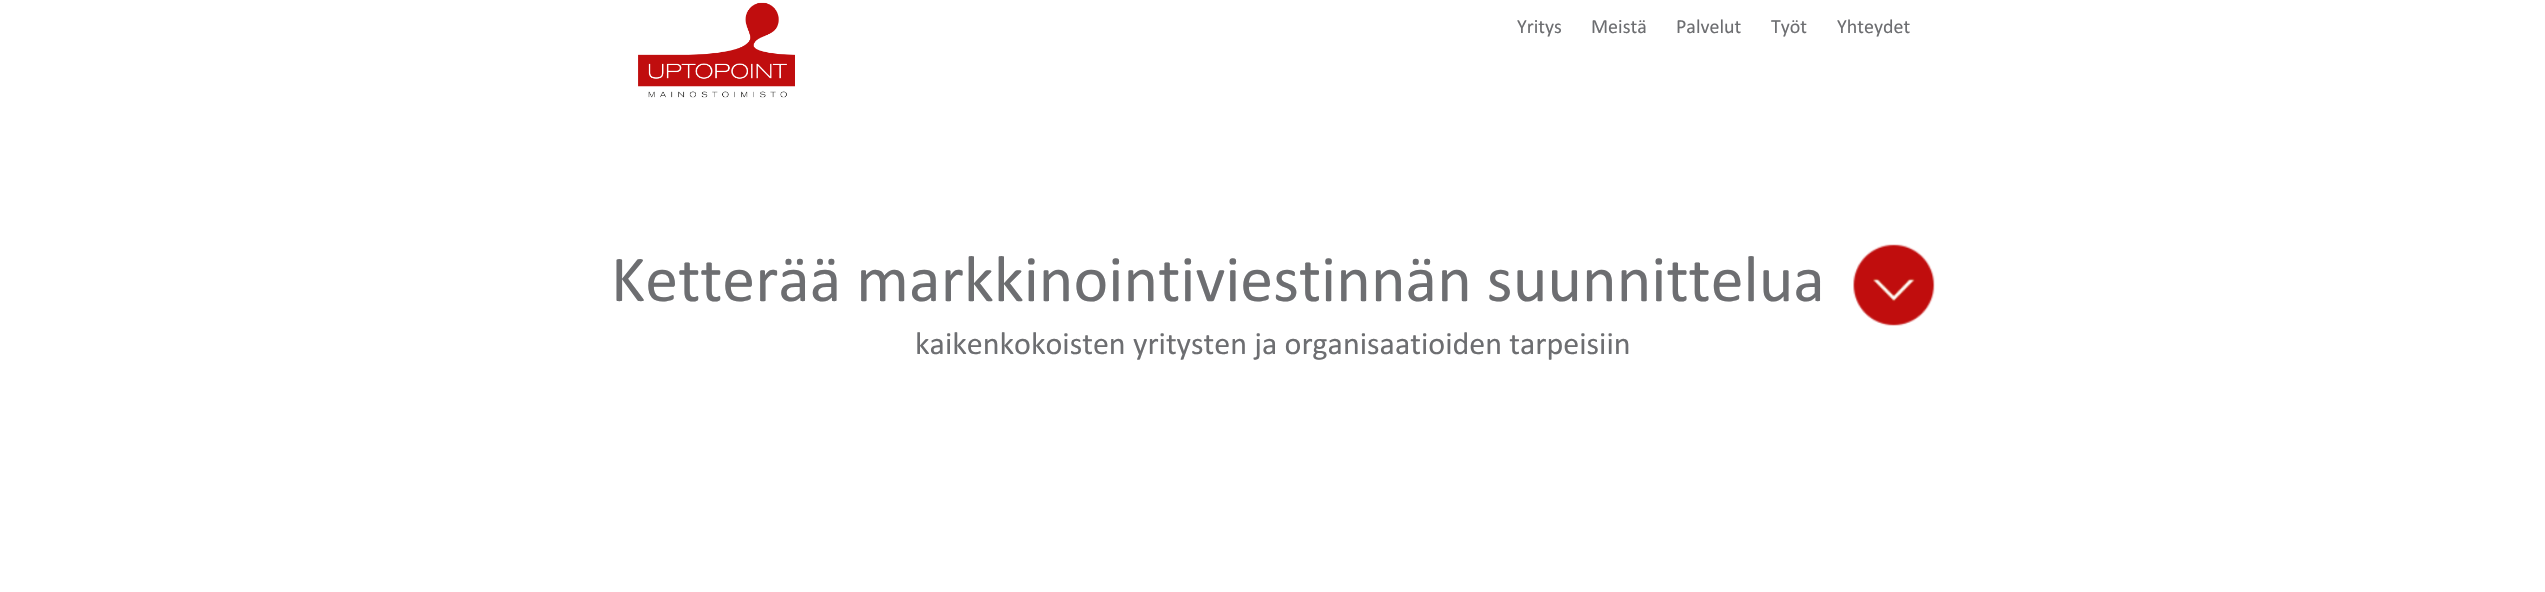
void draw(SkCanvas* c) {
SkPaint p;
p.setAntiAlias(true);
auto F=[&](const char* family, int weight, float size, bool italic = false){SkFontStyle style(weight, SkFontStyle::kNormal_Width,italic ? SkFontStyle::kItalic_Slant : SkFontStyle::kUpright_Slant);SkFont result(fontMgr->matchFamilyStyle(family, style), size);result.setSubpixel(true);return result;};
auto T=[&](const char* s, float x, float y, const SkFont& font){c->drawString(s, x, y, font, p);};
auto I=[&](const char* path, float x, float y, float w, float h){auto image = SkImages::DeferredFromEncodedData(SkData::MakeFromFileName(path));c->drawImageRect(image, SkRect::MakeXYWH(x, y, w, h), SkSamplingOptions());};
c->clear(0xffffffff);
I("1.png",638,2,157,96);
auto f1 = F("Calibri",400,20);
p.setColor(0xff6d6e71);
T("Yritys",1517,33,f1);
T("Meistä",1591,33,f1);
T("Palvelut",1676,33,f1);
T("Työt",1771,33,f1);
T("Yhteydet",1837,33,f1);
auto f2 = F("Calibri",400,66);
T("Ketterää markkinointiviestinnän suunnittelua",611,301,f2);
I("2.png",1853,244,82,82);
auto f3 = F("Calibri",400,32);
T("kaikenkokoisten yritysten ja organisaatioiden tarpeisiin",915,354,f3);
}
